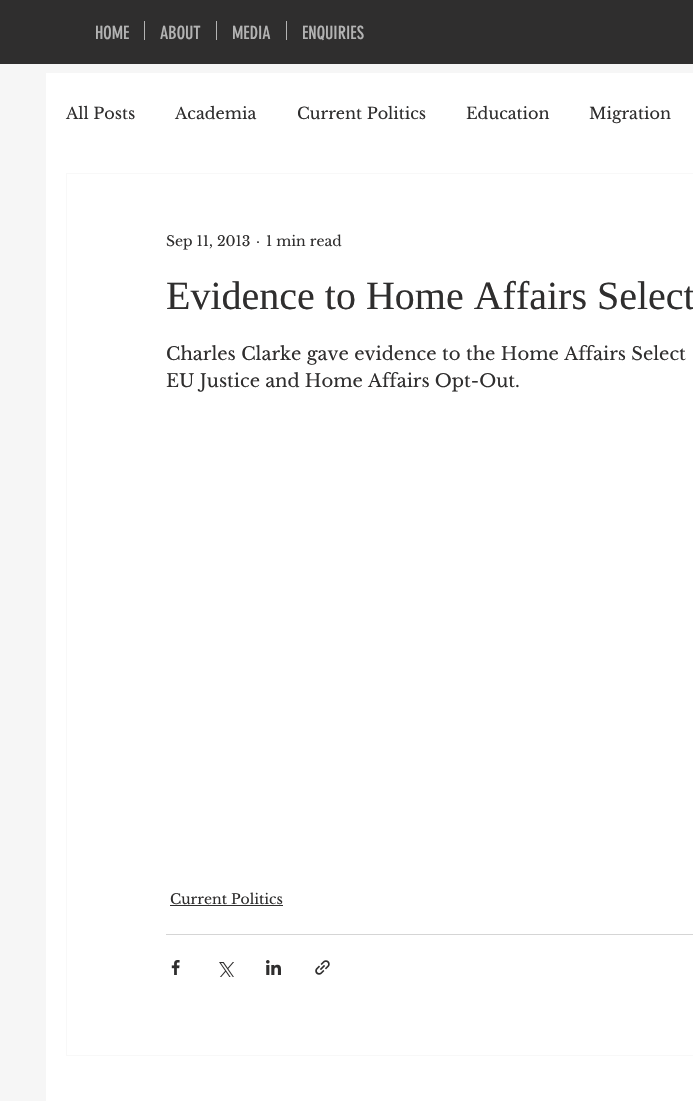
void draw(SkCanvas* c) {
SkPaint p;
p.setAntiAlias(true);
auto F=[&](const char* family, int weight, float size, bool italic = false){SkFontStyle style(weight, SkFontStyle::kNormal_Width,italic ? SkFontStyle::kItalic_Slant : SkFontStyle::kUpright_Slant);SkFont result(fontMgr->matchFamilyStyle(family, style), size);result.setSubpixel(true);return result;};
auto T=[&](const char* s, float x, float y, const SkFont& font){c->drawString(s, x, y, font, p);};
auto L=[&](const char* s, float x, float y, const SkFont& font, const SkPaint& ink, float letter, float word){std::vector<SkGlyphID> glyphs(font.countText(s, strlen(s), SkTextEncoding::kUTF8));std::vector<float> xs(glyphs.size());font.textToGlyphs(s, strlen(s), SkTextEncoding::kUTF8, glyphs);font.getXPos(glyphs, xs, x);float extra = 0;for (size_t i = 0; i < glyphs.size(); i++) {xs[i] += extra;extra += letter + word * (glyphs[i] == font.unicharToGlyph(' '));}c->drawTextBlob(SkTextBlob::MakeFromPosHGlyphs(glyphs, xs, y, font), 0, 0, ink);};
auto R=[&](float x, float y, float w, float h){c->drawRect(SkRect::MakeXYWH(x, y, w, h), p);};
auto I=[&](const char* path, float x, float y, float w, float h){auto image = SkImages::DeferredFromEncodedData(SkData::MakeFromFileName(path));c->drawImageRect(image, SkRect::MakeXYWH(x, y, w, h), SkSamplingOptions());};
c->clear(0xfff6f6f6);
p.setColor(0xff2f2e2e);
R(0,0,693,64);
auto f1 = F("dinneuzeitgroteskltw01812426",400,18);
p.setColor(0xffb3b3b3);
T("HOME",95,39,f1);
R(144,21,1,19);
T("ABOUT",160,39,f1);
R(216,21,1,19);
T("MEDIA",232,39,f1);
R(286,21,1,19);
T("ENQUIRIES",302,39,f1);
p.setColor(0xffffffff);
R(46,73,647,1028);
auto f2 = F("Libre Baskerville",400,16);
p.setColor(0xff2f2e2e);
T("All Posts",66,119,f2);
T("Academia",175,119,f2);
T("Current Politics",297,119,f2);
T("Education",466,119,f2);
T("Migration",589,119,f2);
p.setStroke(true);
p.setStrokeWidth(1);
p.setColor(0xfff8f8f8);
c->drawRect(SkRect::MakeXYWH(66.5,173.5,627,882),p);
auto f3 = F("Libre Baskerville",400,14);
p.setStroke(false);
p.setColor(0xff2f2e2e);
T("Sep 11, 2013",166,246,f3);
T("·",256,246,f3);
T("1 min read",266,246,f3);
auto f4 = F("Liberation Serif",400,40);
T("Evidence to Home Affairs Select",166,309,f4);
auto f5 = F("Libre Baskerville",400,18);
L("Charles Clarke gave evidence to the Home Affairs Select",166,360,f5,p,0,.25);
T("EU Justice and Home Affairs Opt-Out.",166,387,f5);
T("Current Politics",170,904,f3);
R(170,905,113,1);
p.setColor(0xffd5d5d5);
R(166,934,527,1);
I("1.png",171,960,9,15);
I("2.png",219,962,15,15);
I("3.png",266,960,15,15);
I("4.png",315,960,15,15);
}
